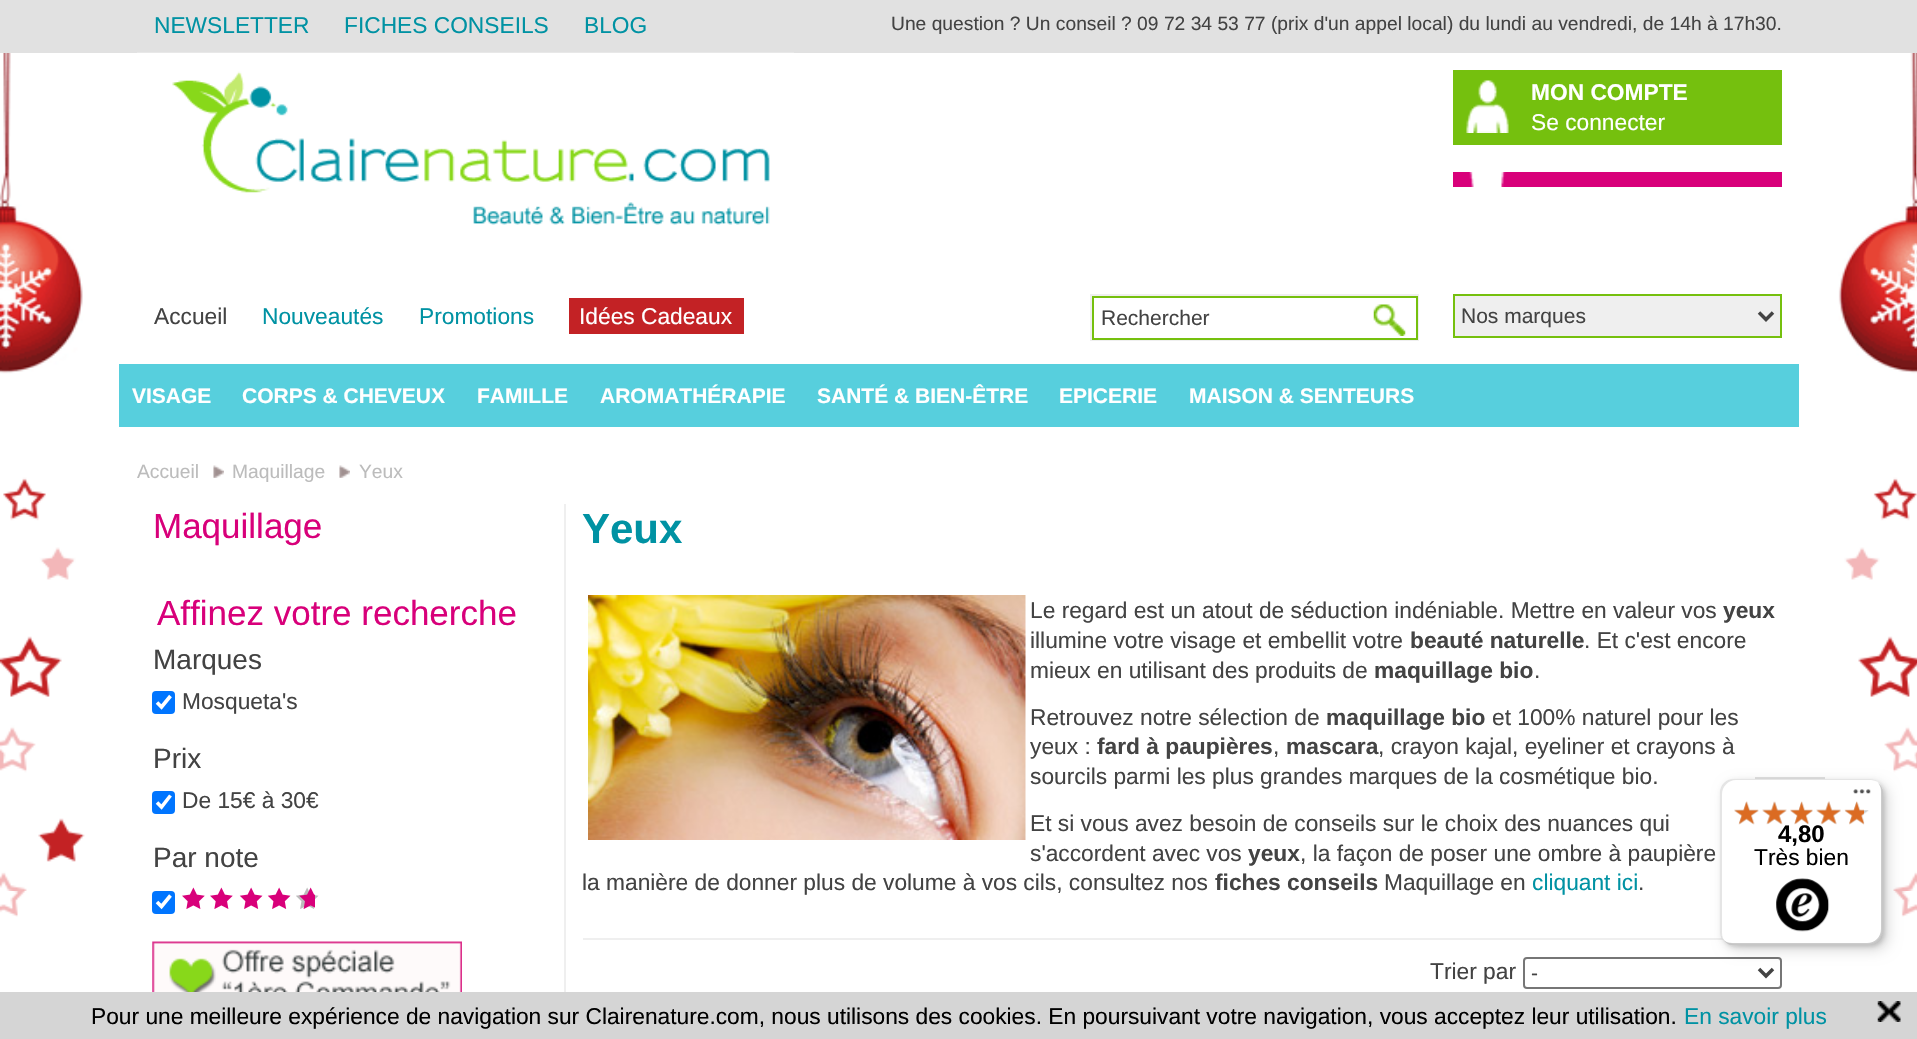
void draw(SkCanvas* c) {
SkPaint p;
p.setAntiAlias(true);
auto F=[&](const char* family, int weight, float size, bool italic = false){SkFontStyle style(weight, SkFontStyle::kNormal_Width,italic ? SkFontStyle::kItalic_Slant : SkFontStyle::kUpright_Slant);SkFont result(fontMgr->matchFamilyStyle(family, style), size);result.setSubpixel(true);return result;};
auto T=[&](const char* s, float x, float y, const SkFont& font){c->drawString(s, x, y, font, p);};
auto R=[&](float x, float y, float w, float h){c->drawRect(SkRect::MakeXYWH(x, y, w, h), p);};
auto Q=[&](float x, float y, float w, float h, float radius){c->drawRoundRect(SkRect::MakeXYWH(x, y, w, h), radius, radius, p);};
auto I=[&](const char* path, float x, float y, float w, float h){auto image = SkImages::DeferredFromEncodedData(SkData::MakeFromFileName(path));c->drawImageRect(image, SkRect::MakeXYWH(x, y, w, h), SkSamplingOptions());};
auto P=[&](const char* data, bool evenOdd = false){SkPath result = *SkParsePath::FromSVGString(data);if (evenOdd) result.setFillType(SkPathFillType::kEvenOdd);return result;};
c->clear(0xffffffff);
I("1.png",0,53,1917,864);
p.setColor(0xffe1e1e1);
R(0,0,1917,53);
auto f1 = F("Liberation Sans",400,22.75);
p.setColor(0xff0092a3);
T("NEWSLETTER",154,33,f1);
T("FICHES CONSEILS",344,33,f1);
T("BLOG",584,33,f1);
auto f2 = F("Liberation Sans",400,19.25);
p.setColor(0xff434343);
T("Une question ? Un conseil ? 09 72 34 53 77 (prix d'un appel local) du lundi au vendredi, de 14h à 17h30.",891,30,f2);
I("2.png",137,52,657,173);
p.setColor(0xff75c00e);
R(1453,70,329,75);
I("3.png",1466,80,43,53);
auto f3 = F("Liberation Sans",700,22.75);
p.setColor(0xffffffff);
T("MON COMPTE",1531,100,f3);
T("Se connecter",1531,130,f1);
p.setColor(0xffd8007a);
R(1453,172,329,15);
I("4.png",1469,172,37,15);
p.setColor(0xff434343);
T("Accueil",154,324,f1);
p.setColor(0xff0092a3);
T("Nouveautés",262,324,f1);
T("Promotions",419,324,f1);
p.setColor(0xffc32225);
R(569,298,175,36);
p.setColor(0xffffffff);
T("Idées Cadeaux",579,324,f1);
p.setStroke(true);
p.setStrokeWidth(2);
p.setColor(0xffefefef);
c->drawRect(SkRect::MakeXYWH(1091,295,327,45),p);
p.setColor(0xff75c00e);
c->drawRect(SkRect::MakeXYWH(1093,297,324,42),p);
auto f4 = F("Liberation Sans",400,21);
p.setStroke(false);
p.setColor(0xff434343);
T("Rechercher",1101,325,f4);
I("5.png",1373,304,33,32);
p.setColor(0xffefefef);
c->drawRect(SkRect::MakeXYWH(1454,295,327,42),p);
p.setStroke(true);
p.setColor(0xff75c00e);
c->drawRect(SkRect::MakeXYWH(1454,295,327,42),p);
p.setStrokeWidth(3.5);
p.setColor(0xff434343);
c->drawPath(P("M1759 312.5l7 7l7-7"),p);
p.setStroke(false);
T("Nos marques",1461,323,f4);
p.setColor(0xff57cfdd);
R(119,364,1680,63);
auto f5 = F("Liberation Sans",700,21);
p.setColor(0xffffffff);
T("VISAGE",132,403,f5);
T("CORPS & CHEVEUX",242,403,f5);
T("FAMILLE",477,403,f5);
T("AROMATHÉRAPIE",600,403,f5);
T("SANTÉ & BIEN-ÊTRE",817,403,f5);
T("EPICERIE",1059,403,f5);
T("MAISON & SENTEURS",1189,403,f5);
p.setColor(0xffbcbcbc);
T("Accueil",137,478,f2);
I("6.png",213,465,11,13);
T("Maquillage",232,478,f2);
I("7.png",339,465,11,13);
T("Yeux",359,478,f2);
auto f6 = F("Liberation Sans",400,35);
p.setColor(0xffd8007a);
T("Maquillage",153,538,f6);
T("Affinez votre recherche",157,625,f6);
auto f7 = F("Liberation Sans",400,28);
p.setColor(0xff434343);
T("Marques",153,669,f7);
p.setColor(0xff0075ff);
Q(152,691,23,23,4);
p.setStroke(true);
p.setStrokeWidth(3.6);
p.setColor(0xffffffff);
c->drawPath(P("M157 702.5l4.5 4.5l9-11"),p);
p.setStroke(false);
p.setColor(0xff434343);
T("Mosqueta's",182,709,f1);
T("Prix",153,768,f7);
p.setColor(0xff0075ff);
Q(152,791,23,23,4);
p.setStroke(true);
p.setColor(0xffffffff);
c->drawPath(P("M157 802.5l4.5 4.5l9-11.5"),p);
p.setStroke(false);
p.setColor(0xff434343);
T("De 15€ à 30€",182,808,f1);
T("Par note",153,867,f7);
p.setColor(0xff0075ff);
Q(152,891,23,23,4);
p.setStroke(true);
p.setColor(0xffffffff);
c->drawPath(P("M157 902l4.5 4.5l9-11"),p);
I("8.png",182,887,23,22);
I("8.png",210,887,23,22);
I("9.png",239,887,24,22);
I("9.png",267,887,24,22);
I("10.png",296,887,23,22);
I("11.png",299,887,16,22);
I("12.png",152,941,310,51);
p.setStroke(false);
p.setColor(0xffefefef);
R(564,504,2,488);
auto f8 = F("Liberation Sans",700,42);
p.setColor(0xff0092a3);
T("Yeux",582,543,f8);
I("13.png",588,595,438,245);
p.setColor(0xff434343);
T("Le regard est un atout de séduction indéniable. Mettre en valeur vos",1030,618,f1);
T("yeux",1723,618,f3);
T("illumine votre visage et embellit votre",1030,648,f1);
T("beauté naturelle",1410,648,f3);
T(". Et c'est encore",1584,648,f1);
T("mieux en utilisant des produits de",1030,678,f1);
T("maquillage bio",1374,678,f3);
T(".",1534,678,f1);
T("Retrouvez notre sélection de",1030,725,f1);
T("maquillage bio",1326,725,f3);
T("et 100% naturel pour les",1492,725,f1);
T("yeux :",1030,754,f1);
T("fard à paupières",1097,754,f3);
T(",",1273,754,f1);
T("mascara",1286,754,f3);
T(", crayon kajal, eyeliner et crayons à",1378,754,f1);
T("sourcils parmi les plus grandes marques de la cosmétique bio.",1030,784,f1);
T("Et si vous avez besoin de conseils sur le choix des nuances qui",1030,831,f1);
T("s'accordent avec vos",1030,861,f1);
T("yeux",1248,861,f3);
T(", la façon de poser une ombre à paupière",1300,861,f1);
T("la manière de donner plus de volume à vos cils, consultez nos",582,890,f1);
T("fiches conseils",1215,890,f3);
T("Maquillage en",1384,890,f1);
p.setColor(0xff0092a3);
T("cliquant ici",1532,890,f1);
p.setColor(0xff434343);
T(".",1638,890,f1);
p.setColor(0xffefefef);
R(583,938,1141,2);
p.setColor(0xff434343);
T("Trier par",1430,979,f1);
p.setStroke(true);
p.setStrokeWidth(2);
p.setColor(0xff767676);
c->drawRoundRect(SkRect::MakeXYWH(1524,958,257,30),3,3,p);
p.setStrokeWidth(3.5);
p.setColor(0xff434343);
c->drawPath(P("M1759 969l7 7l7-7"),p);
p.setStroke(false);
T("-",1531,980,f4);
p.setColor(0xffe1e1e1);
R(1755,777,70,2);
p.setColor(0x26000000);
p.setMaskFilter(SkMaskFilter::MakeBlur(kNormal_SkBlurStyle, 7));
c->drawRoundRect(SkRect::MakeXYWH(1726,784,162,166),14,14,p);
p.setMaskFilter(nullptr);
p.setMaskFilter(SkMaskFilter::MakeBlur(kNormal_SkBlurStyle, 2));
c->drawRoundRect(SkRect::MakeXYWH(1722,781,163,166),14,14,p);
p.setMaskFilter(nullptr);
p.setColor(0xffffffff);
Q(1720,779,163,166,14);
p.setColor(0x1a000000);
c->drawPath(P("M1736 780h135c2 0 5 1 7 2c-3-2-6-3-9-3h-135c-8 0-14 6-14 14v138c0 5 2 9 6 11c-3-2-4-6-4-9v-139c0-7 6-14 14-14z"),p);
p.setColor(0x33000000);
c->drawPath(P("M1723 939c2 4 6 6 11 6h135c8 0 14-6 14-14v-138c0-4-2-8-5-10c2 2 3 5 3 8v138c0 8-6 14-14 14h-135c-3 0-7-1-9-4z"),p);
p.setColor(0x33323232);
c->drawPath(P("M1725 941c2 3 5 4 9 4h135c8 0 14-6 14-14v-138c0-4-1-7-4-9c2 2 3 5 3 8v138c0 8-6 14-14 14h-135c-3 0-6-1-8-3z"),p);
p.setColor(0x4dffffff);
c->drawPath(P("M1723 940c2 3 6 5 11 5h135c8 0 14-6 14-14v-138c0-4-1-7-4-9c2 2 3 5 3 8v138c0 8-6 14-14 14h-135c-4 0-7-2-10-4z"),p);
I("14.png",1853,789,18,5);
I("15.png",1734,802,25,23);
I("16.png",1762,802,25,22);
I("17.png",1790,802,23,22);
I("18.png",1816,801,25,23);
I("19.png",1845,802,24,23);
I("20.png",1734,801,25,24);
auto f9 = F("Liberation Sans",700,24);
p.setColor(0xff000000);
T("4,80",1778,842,f9);
I("21.png",1762,801,25,24);
I("22.png",1790,801,23,24);
I("23.png",1816,801,25,24);
I("24.png",1844,801,20,24);
T("Très bien",1754,865,f1);
I("25.png",1776,878,54,54);
p.setColor(0xffd5d5d5);
R(0,992,1917,47);
p.setColor(0xff000000);
T("Pour une meilleure expérience de navigation sur Clairenature.com, nous utilisons des cookies. En poursuivant votre navigation, vous acceptez leur utilisation.",91,1024,f1);
p.setColor(0xff0092a3);
T("En savoir plus",1684,1024,f1);
I("26.png",1877,1001,24,21);
}
